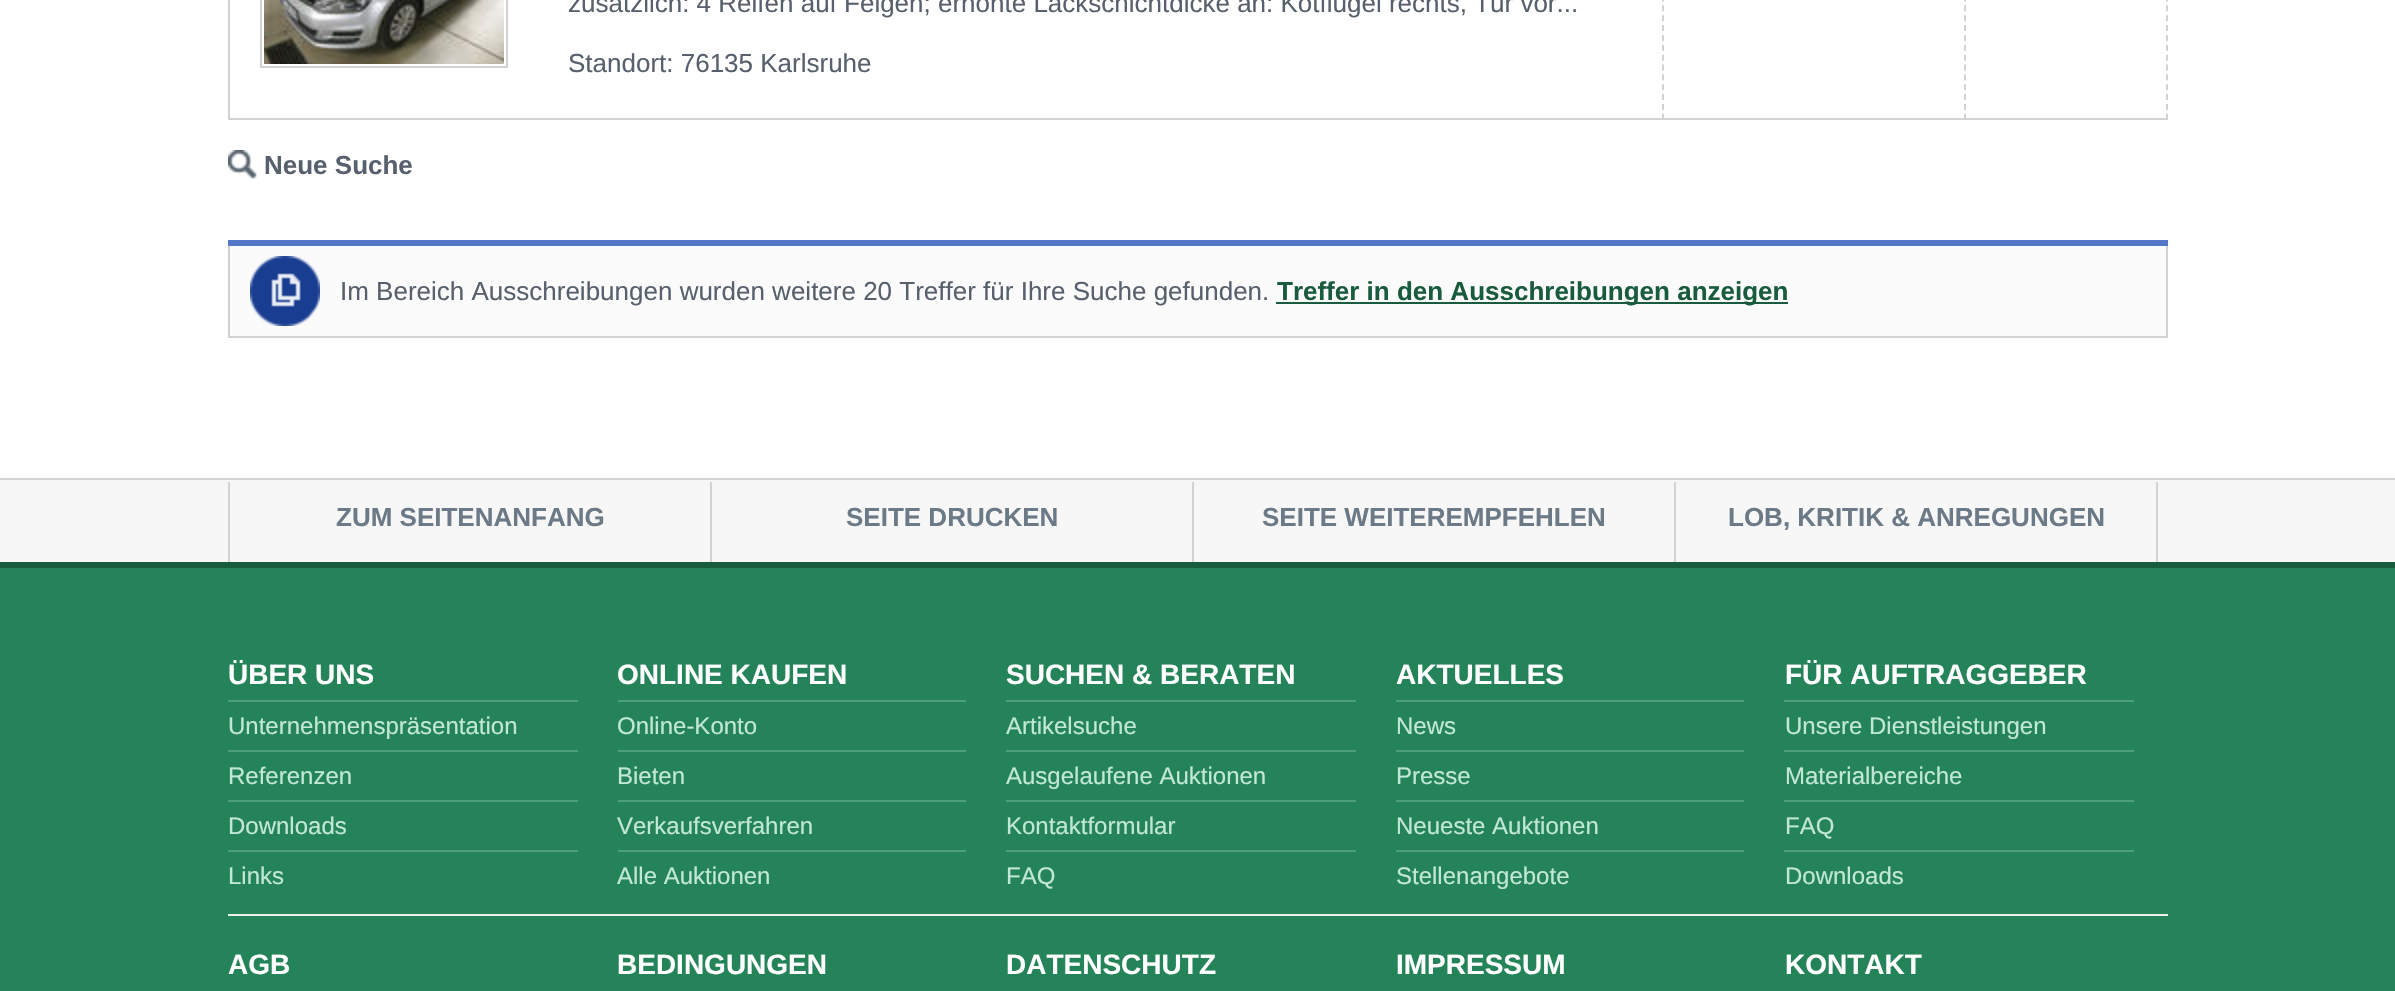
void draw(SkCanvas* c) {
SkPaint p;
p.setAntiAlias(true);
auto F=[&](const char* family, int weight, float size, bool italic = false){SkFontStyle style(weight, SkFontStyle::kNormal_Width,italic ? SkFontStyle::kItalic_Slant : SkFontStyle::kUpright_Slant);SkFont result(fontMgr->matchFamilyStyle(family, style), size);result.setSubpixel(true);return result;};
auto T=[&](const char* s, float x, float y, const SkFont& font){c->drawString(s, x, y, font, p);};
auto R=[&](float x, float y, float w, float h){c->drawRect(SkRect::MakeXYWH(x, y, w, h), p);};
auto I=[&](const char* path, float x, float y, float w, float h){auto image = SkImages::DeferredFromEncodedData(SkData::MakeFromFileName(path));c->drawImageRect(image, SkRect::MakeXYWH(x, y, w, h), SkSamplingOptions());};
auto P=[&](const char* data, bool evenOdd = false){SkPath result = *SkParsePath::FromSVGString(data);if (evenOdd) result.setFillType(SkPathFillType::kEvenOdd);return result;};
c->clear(0xffffffff);
p.setColor(0xffd1d3d4);
R(228,118,310,2);
R(228,0,2,120);
p.setStroke(true);
p.setStrokeWidth(2);
p.setColor(0xffd0d2d3);
c->drawRect(SkRect::MakeXYWH(261,-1,246,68),p);
I("1.png",264,0,240,64);
p.setColor(0xffd1d3d4);
p.setPathEffect(SkDashPathEffect::Make({{6,3.86f}}, 0));
c->drawPath(P("M1663-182v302"),p);
p.setPathEffect(nullptr);
p.setStroke(false);
R(538,118,1126,2);
auto f1 = F("Arimo",400,26);
p.setColor(0xff57606c);
T("zusätzlich: 4 Reifen auf Felgen; erhöhte Lackschichtdicke an: Kotflügel rechts, Tür vor...",568,12,f1);
T("Standort: 76135 Karlsruhe",568,72,f1);
p.setStroke(true);
p.setColor(0xffd1d3d4);
p.setPathEffect(SkDashPathEffect::Make({{6,3.86f}}, 0));
c->drawPath(P("M1965-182v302"),p);
p.setPathEffect(nullptr);
p.setStroke(false);
R(1664,118,302,2);
p.setStroke(true);
p.setPathEffect(SkDashPathEffect::Make({{6,3.86f}}, 0));
c->drawPath(P("M2167-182v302"),p);
p.setPathEffect(nullptr);
p.setStroke(false);
R(1966,118,202,2);
I("2.png",228,150,29,29);
auto f2 = F("Arimo",700,26);
p.setColor(0xff57606c);
T("Neue Suche",264,174,f2);
p.setColor(0xfffbfbfb);
R(230,246,1936,90);
p.setColor(0xff5477c8);
R(228,240,1940,6);
I("3.png",250,256,70,70);
p.setColor(0xffd0d2d3);
R(2166,246,2,92);
R(228,336,1940,2);
R(228,246,2,92);
p.setColor(0xff57606c);
T("Im Bereich Ausschreibungen wurden weitere 20 Treffer für Ihre Suche gefunden.",340,300,f1);
p.setColor(0xff195b3d);
R(1276,302,512,2);
T("Treffer in den Ausschreibungen anzeigen",1277,300,f2);
p.setColor(0xfff7f7f7);
R(0,480,2395,82);
p.setColor(0xffd0d2d3);
R(0,478,2395,2);
R(710,482,2,80);
R(228,482,2,80);
p.setColor(0xff6c7986);
T("ZUM SEITENANFANG",336,526,f2);
p.setColor(0xffd0d2d3);
R(1192,482,2,80);
p.setColor(0xff6c7986);
T("SEITE DRUCKEN",846,526,f2);
p.setColor(0xffd0d2d3);
R(1674,482,2,80);
p.setColor(0xff6c7986);
T("SEITE WEITEREMPFEHLEN",1262,526,f2);
p.setColor(0xffd0d2d3);
R(2156,482,2,80);
p.setColor(0xff6c7986);
T("LOB, KRITIK & ANREGUNGEN",1728,526,f2);
p.setColor(0xff248358);
R(0,568,2395,423);
p.setColor(0xff195b3d);
R(0,562,2395,6);
auto f3 = F("Arimo",700,28);
p.setColor(0xffffffff);
T("ÜBER UNS",228,684,f3);
p.setColor(0xff4d9f7a);
R(228,700,350,2);
R(228,750,350,2);
auto f4 = F("Arimo",400,24);
p.setColor(0xffc1e7d6);
T("Unternehmenspräsentation",228,734,f4);
p.setColor(0xff4d9f7a);
R(228,800,350,2);
p.setColor(0xffc1e7d6);
T("Referenzen",228,784,f4);
p.setColor(0xff4d9f7a);
R(228,850,350,2);
p.setColor(0xffc1e7d6);
T("Downloads",228,834,f4);
T("Links",228,884,f4);
p.setColor(0xffffffff);
T("ONLINE KAUFEN",617,684,f3);
p.setColor(0xff4d9f7a);
R(618,700,348,2);
R(618,750,348,2);
p.setColor(0xffc1e7d6);
T("Online-Konto",617,734,f4);
p.setColor(0xff4d9f7a);
R(618,800,348,2);
p.setColor(0xffc1e7d6);
T("Bieten",617,784,f4);
p.setColor(0xff4d9f7a);
R(618,850,348,2);
p.setColor(0xffc1e7d6);
T("Verkaufsverfahren",617,834,f4);
T("Alle Auktionen",617,884,f4);
p.setColor(0xffffffff);
T("SUCHEN & BERATEN",1006,684,f3);
p.setColor(0xff4d9f7a);
R(1006,700,350,2);
R(1006,750,350,2);
p.setColor(0xffc1e7d6);
T("Artikelsuche",1006,734,f4);
p.setColor(0xff4d9f7a);
R(1006,800,350,2);
p.setColor(0xffc1e7d6);
T("Ausgelaufene Auktionen",1006,784,f4);
p.setColor(0xff4d9f7a);
R(1006,850,350,2);
p.setColor(0xffc1e7d6);
T("Kontaktformular",1006,834,f4);
T("FAQ",1006,884,f4);
p.setColor(0xffffffff);
T("AKTUELLES",1396,684,f3);
p.setColor(0xff4d9f7a);
R(1396,700,348,2);
R(1396,750,348,2);
p.setColor(0xffc1e7d6);
T("News",1396,734,f4);
p.setColor(0xff4d9f7a);
R(1396,800,348,2);
p.setColor(0xffc1e7d6);
T("Presse",1396,784,f4);
p.setColor(0xff4d9f7a);
R(1396,850,348,2);
p.setColor(0xffc1e7d6);
T("Neueste Auktionen",1396,834,f4);
T("Stellenangebote",1396,884,f4);
p.setColor(0xffffffff);
T("FÜR AUFTRAGGEBER",1785,684,f3);
p.setColor(0xff4d9f7a);
R(1784,700,350,2);
R(1784,750,350,2);
p.setColor(0xffc1e7d6);
T("Unsere Dienstleistungen",1785,734,f4);
p.setColor(0xff4d9f7a);
R(1784,800,350,2);
p.setColor(0xffc1e7d6);
T("Materialbereiche",1785,784,f4);
p.setColor(0xff4d9f7a);
R(1784,850,350,2);
p.setColor(0xffc1e7d6);
T("FAQ",1785,834,f4);
T("Downloads",1785,884,f4);
p.setColor(0xffeeeeee);
R(228,914,1940,2);
p.setColor(0xffffffff);
T("AGB",228,974,f3);
T("BEDINGUNGEN",617,974,f3);
T("DATENSCHUTZ",1006,974,f3);
T("IMPRESSUM",1396,974,f3);
T("KONTAKT",1785,974,f3);
}
